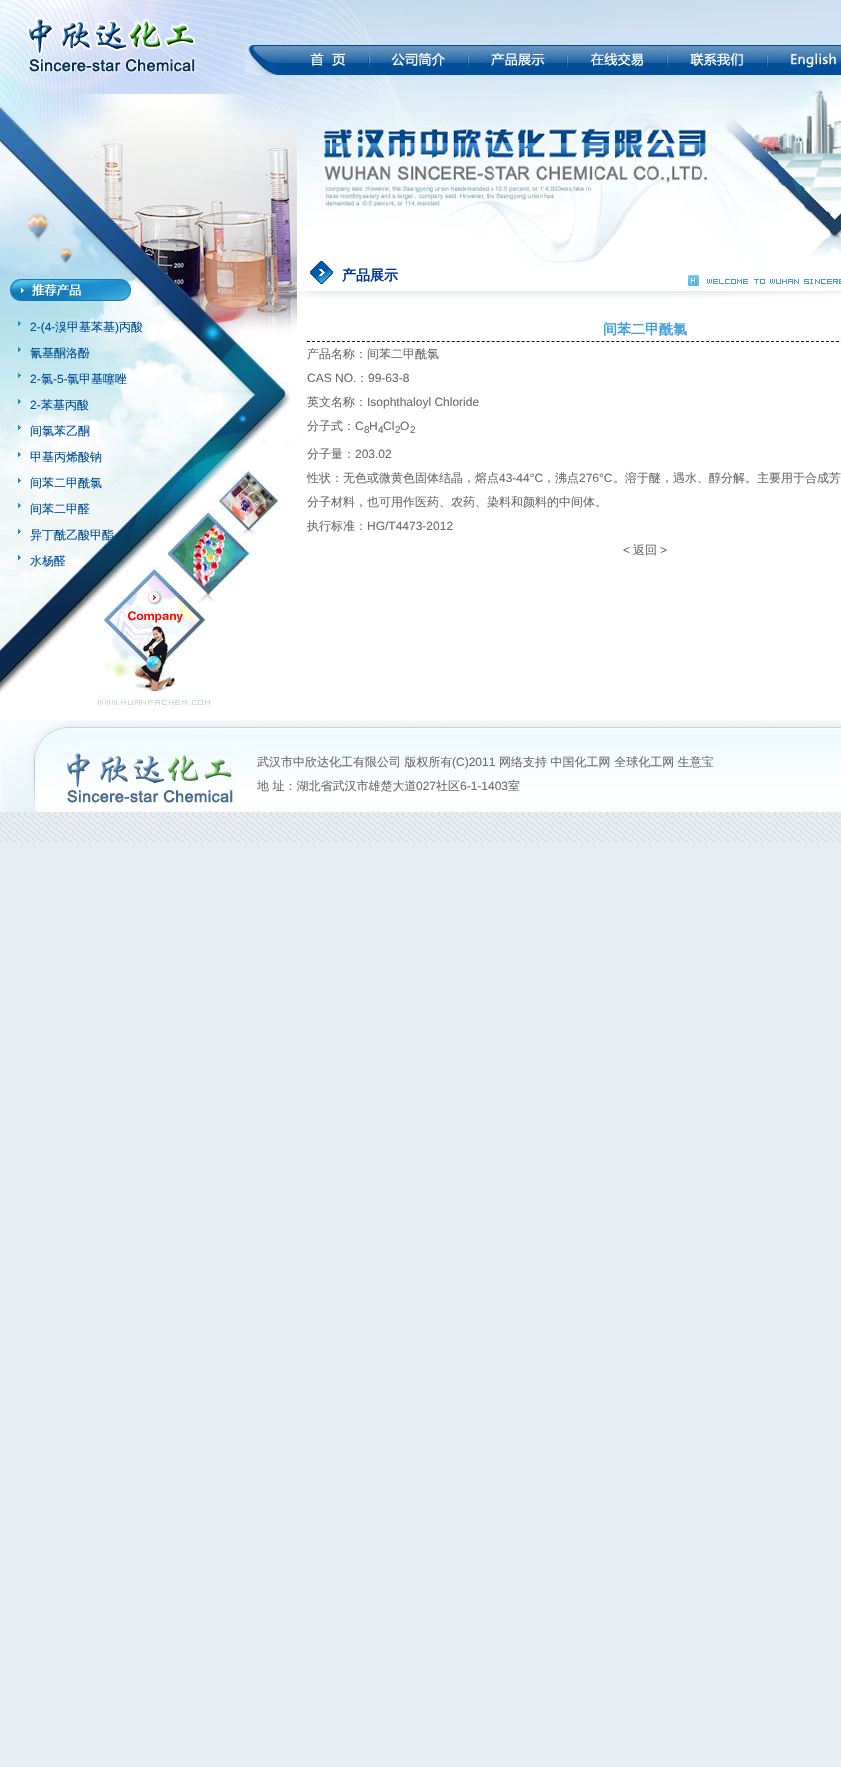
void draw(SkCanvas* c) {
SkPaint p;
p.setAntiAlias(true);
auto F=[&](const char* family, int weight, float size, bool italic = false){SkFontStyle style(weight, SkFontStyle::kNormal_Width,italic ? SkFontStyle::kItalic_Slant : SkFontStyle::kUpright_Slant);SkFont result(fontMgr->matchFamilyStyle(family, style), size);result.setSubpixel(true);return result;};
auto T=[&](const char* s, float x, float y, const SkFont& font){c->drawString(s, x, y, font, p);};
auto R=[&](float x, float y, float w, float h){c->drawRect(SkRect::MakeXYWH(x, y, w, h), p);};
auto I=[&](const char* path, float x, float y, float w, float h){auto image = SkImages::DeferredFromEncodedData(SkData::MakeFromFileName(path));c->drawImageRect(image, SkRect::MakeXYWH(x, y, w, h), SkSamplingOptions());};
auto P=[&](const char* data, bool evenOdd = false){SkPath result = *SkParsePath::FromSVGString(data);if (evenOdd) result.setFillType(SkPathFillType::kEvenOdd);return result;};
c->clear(0xffe8edf1);
I("1.png",0,814,841,28);
I("2.png",226,0,615,94);
I("3.png",0,0,226,94);
I("4.png",245,45,125,30);
I("5.png",370,45,99,30);
I("6.png",469,45,100,30);
I("7.png",569,45,99,30);
I("8.png",668,45,100,30);
I("9.png",768,45,73,30);
p.setColor(0xffffffff);
R(0,298,841,422);
I("10.png",297,94,544,156);
I("11.png",0,94,297,616);
auto f1 = F("Liberation Sans",400,12);
p.setColor(0xff004e99);
T("2-(4-",30,331,f1);
auto f2 = F("WenQuanYi Zen Hei",500,12);
T("溴甲基苯基",55,331,f2);
T(")",115,331,f1);
T("丙酸",119,331,f2);
T("氰基酮洛酚",30,357,f2);
T("2-",30,383,f1);
T("氯",41,383,f2);
T("-5-",53,383,f1);
T("氯甲基噻唑",67,383,f2);
T("2-",30,409,f1);
T("苯基丙酸",41,409,f2);
T("间氯苯乙酮",30,435,f2);
T("甲基丙烯酸钠",30,461,f2);
T("间苯二甲酰氯",30,487,f2);
T("间苯二甲醛",30,513,f2);
T("异丁酰乙酸甲酯",30,539,f2);
T("水杨醛",30,565,f2);
I("12.png",297,250,544,48);
auto f3 = F("WenQuanYi Zen Hei",700,14);
p.setColor(0xff003399);
T("产品展示",342,280,f3);
p.setStroke(true);
p.setStrokeWidth(1);
p.setColor(0xff111111);
p.setPathEffect(SkDashPathEffect::Make({{3,1.99f}}, 0));
c->drawPath(P("M307 341.5h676"),p);
p.setPathEffect(nullptr);
p.setStroke(false);
p.setColor(0xff43a1d9);
T("间苯二甲酰氯",603,334,f3);
p.setColor(0xff6a6b6a);
T("产品名称：间苯二甲酰氯",307,358,f2);
T("CAS NO.",307,382,f1);
T("：",356,382,f2);
T("99-63-8",368,382,f1);
T("英文名称：",307,406,f2);
T("Isophthaloyl Chloride",367,406,f1);
T("分子式：",307,430,f2);
T("C",355,430,f1);
auto f4 = F("Liberation Sans",400,10);
T("8",364,433,f4);
T("H",369,430,f1);
T("4",378,433,f4);
T("Cl",383,430,f1);
T("2",395,433,f4);
T("O",400,430,f1);
T("2",410,433,f4);
T("分子量：",307,458,f2);
T("203.02",355,458,f1);
T("性状：无色或微黄色固体结晶，熔点",307,482,f2);
T("43-44°C",499,482,f1);
T("，沸点",543,482,f2);
T("276°C",579,482,f1);
T("。溶于醚，遇水、醇分解。主要用于合成芳",613,482,f2);
T("分子材料，也可用作医药、农药、染料和颜料的中间体。",307,506,f2);
T("执行标准：",307,530,f2);
T("HG/T4473-2012",367,530,f1);
T("<",623,554,f1);
T("返回",633,554,f2);
T(">",660,554,f1);
I("13.png",0,720,841,94);
I("14.png",60,750,176,56);
T("武汉市中欣达化工有限公司 版权所有",257,766,f2);
T("(C)2011",452,766,f1);
T("网络支持 中国化工网 全球化工网 生意宝",499,766,f2);
T("地 址：湖北省武汉市雄楚大道",257,790,f2);
T("027",416,790,f1);
T("社区",436,790,f2);
T("6-1-1403",460,790,f1);
T("室",508,790,f2);
}
